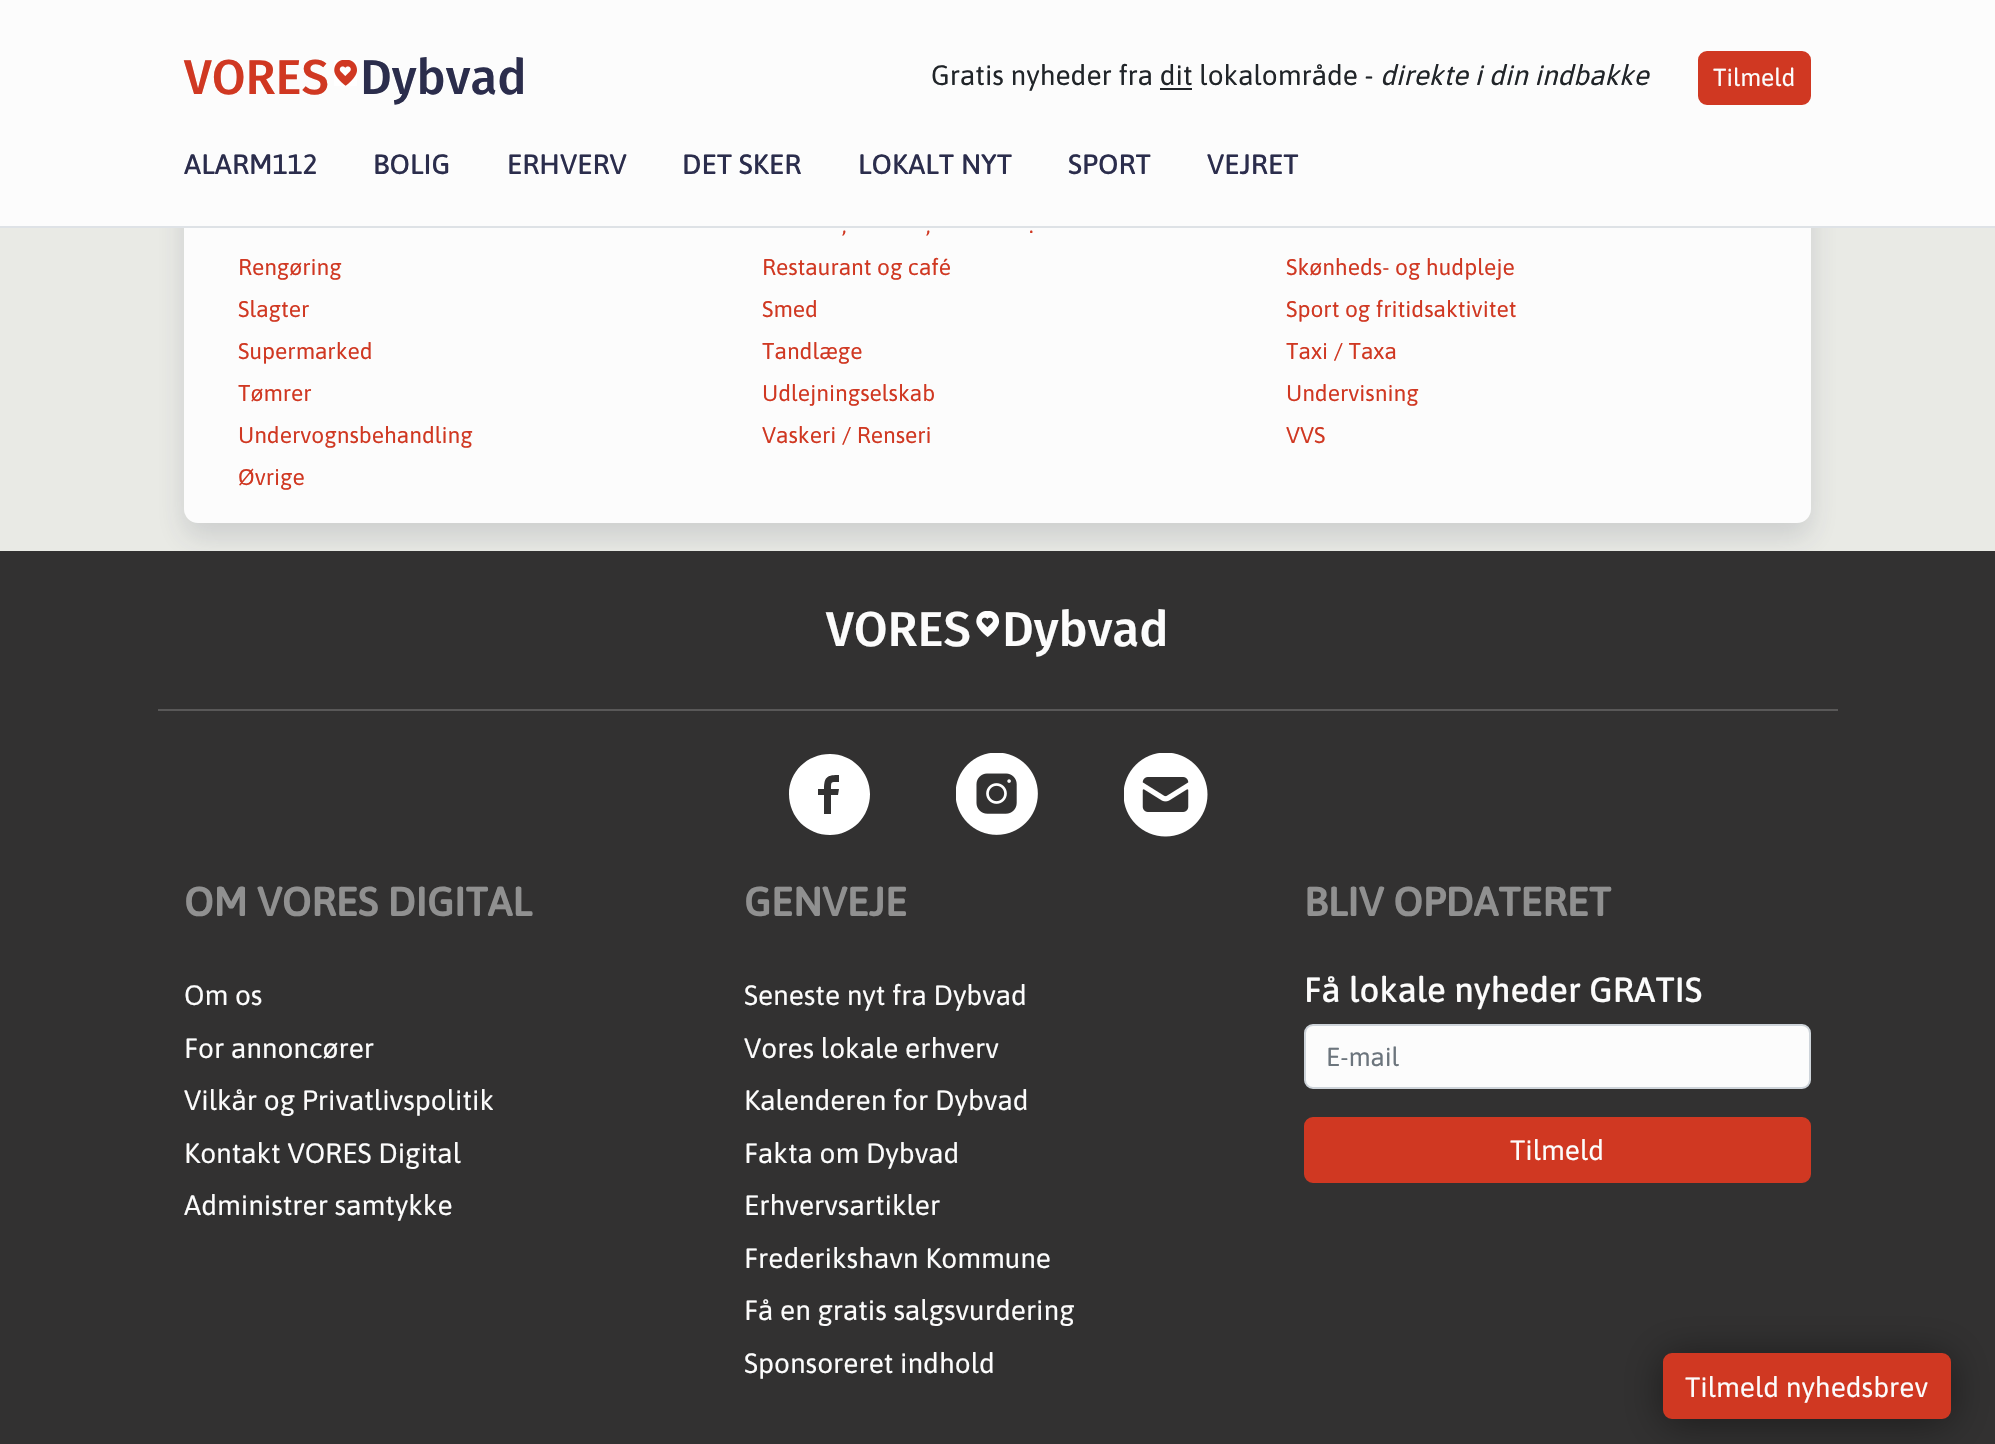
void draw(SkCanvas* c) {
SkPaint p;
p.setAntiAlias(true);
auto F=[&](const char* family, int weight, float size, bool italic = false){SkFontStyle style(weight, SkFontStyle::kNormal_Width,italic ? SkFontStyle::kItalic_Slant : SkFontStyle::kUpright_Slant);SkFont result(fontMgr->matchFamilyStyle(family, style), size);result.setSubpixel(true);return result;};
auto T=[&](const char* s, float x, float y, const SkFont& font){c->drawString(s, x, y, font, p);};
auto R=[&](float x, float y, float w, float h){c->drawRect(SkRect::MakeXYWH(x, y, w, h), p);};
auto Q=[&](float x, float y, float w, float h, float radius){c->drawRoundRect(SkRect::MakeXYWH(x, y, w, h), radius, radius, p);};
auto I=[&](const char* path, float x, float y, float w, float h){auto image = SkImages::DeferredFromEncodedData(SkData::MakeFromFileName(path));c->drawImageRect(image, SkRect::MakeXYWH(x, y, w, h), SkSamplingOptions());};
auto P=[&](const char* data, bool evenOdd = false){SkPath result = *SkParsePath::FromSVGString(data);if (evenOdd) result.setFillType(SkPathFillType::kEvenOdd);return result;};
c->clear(0xffe9eae5);
p.setColor(0x262b2d4c);
p.setMaskFilter(SkMaskFilter::MakeBlur(kNormal_SkBlurStyle, 14));
c->drawRoundRect(SkRect::MakeXYWH(184,-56,1627,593),14,14,p);
p.setMaskFilter(nullptr);
p.setColor(0xfffcfcfc);
Q(184,-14,1627,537,14);
R(0,0,1995,226);
p.setColor(0xffdee2e6);
R(0,226,1995,2);
auto f1 = F("Fira Sans",500,49);
p.setColor(0xffd03822);
T("VORES",184,94,f1);
I("1.png",334,60,23,26);
p.setColor(0xff2b2d4c);
T("Dybvad",360,94,f1);
auto f2 = F("Asap",400,28);
p.setColor(0xff212529);
T("Gratis nyheder fra dit lokalområde -",931,85,f2);
R(1160,88,32,2);
auto f3 = F("Asap",400,28,true);
T("direkte i din indbakke",1380,85,f3);
p.setColor(0xffd03822);
c->drawRoundRect(SkRect::MakeXYWH(1699,52,111,52),8,8,p);
p.setStroke(true);
p.setStrokeWidth(2);
c->drawRoundRect(SkRect::MakeXYWH(1699,52,111,52),8,8,p);
auto f4 = F("Asap",400,24.5);
p.setStroke(false);
p.setColor(0xfffcfcfc);
T("Tilmeld",1713,86,f4);
auto f5 = F("Asap",500,28);
p.setColor(0xff2b2d4c);
T("ALARM112",184,174,f5);
T("BOLIG",373,174,f5);
T("ERHVERV",507,174,f5);
T("DET SKER",682,174,f5);
T("LOKALT NYT",858,174,f5);
T("SPORT",1068,174,f5);
T("VEJRET",1207,174,f5);
auto f6 = F("Asap",400,22.75);
p.setColor(0xffd03822);
T(",",842,233,f6);
T(",",926,233,f6);
T(".",1029,233,f6);
T("Rengøring",238,275,f6);
T("Restaurant og café",762,275,f6);
T("Skønheds- og hudpleje",1286,275,f6);
T("Slagter",238,317,f6);
T("Smed",762,317,f6);
T("Sport og fritidsaktivitet",1286,317,f6);
T("Supermarked",238,359,f6);
T("Tandlæge",762,359,f6);
T("Taxi / Taxa",1286,359,f6);
T("Tømrer",238,401,f6);
T("Udlejningselskab",762,401,f6);
T("Undervisning",1286,401,f6);
T("Undervognsbehandling",238,443,f6);
T("Vaskeri / Renseri",762,443,f6);
T("VVS",1286,443,f6);
T("Øvrige",238,485,f6);
p.setColor(0xff323131);
R(0,551,1995,893);
p.setColor(0xff595858);
R(158,709,1680,2);
p.setColor(0xfffcfcfc);
T("VORES",826,646,f1);
I("2.png",976,611,24,26);
T("Dybvad",1002,646,f1);
p.setColor(0xffffffff);
c->drawPath(P("M830 754c-23 0-41 18-41 40c0 23 18 41 41 41c22 0 40-18 40-41c0-22-18-40-40-40zm9 28c-8 0-8-1-8 7h8l-1 6h-7v19h-7v-19h-6v-6h6c0-13 4-14 15-14z"),p);
I("3.png",956,753,82,82);
I("4.png",1124,753,84,84);
auto f7 = F("Asap",700,40.25);
p.setColor(0xff909090);
T("OM VORES DIGITAL",184,916,f7);
p.setColor(0xfffcfcfc);
T("Om os",184,1005,f2);
T("For annoncører",184,1058,f2);
T("Vilkår og Privatlivspolitik",184,1110,f2);
T("Kontakt VORES Digital",184,1163,f2);
T("Administrer samtykke",184,1215,f2);
p.setColor(0xff909090);
T("GENVEJE",744,916,f7);
p.setColor(0xfffcfcfc);
T("Seneste nyt fra Dybvad",744,1005,f2);
T("Vores lokale erhverv",744,1058,f2);
T("Kalenderen for Dybvad",744,1110,f2);
T("Fakta om Dybvad",744,1163,f2);
T("Erhvervsartikler",744,1215,f2);
T("Frederikshavn Kommune",744,1268,f2);
T("Få en gratis salgsvurdering",744,1320,f2);
T("Sponsoreret indhold",744,1373,f2);
p.setColor(0xff909090);
T("BLIV OPDATERET",1304,916,f7);
auto f8 = F("Asap",500,35);
p.setColor(0xfffcfcfc);
T("Få lokale nyheder GRATIS",1304,1002,f8);
c->drawRoundRect(SkRect::MakeXYWH(1305,1025,505,63),8,8,p);
p.setStroke(true);
p.setColor(0xffced4da);
c->drawRoundRect(SkRect::MakeXYWH(1305,1025,505,63),8,8,p);
auto f9 = F("Asap",400,26);
p.setStroke(false);
p.setColor(0xff6c757d);
T("E-mail",1326,1066,f9);
p.setColor(0xffd03822);
c->drawRoundRect(SkRect::MakeXYWH(1305,1118,505,64),8,8,p);
p.setStroke(true);
c->drawRoundRect(SkRect::MakeXYWH(1305,1118,505,64),8,8,p);
p.setStroke(false);
p.setColor(0xfffcfcfc);
T("Tilmeld",1510,1160,f2);
p.setColor(0x73000000);
p.setMaskFilter(SkMaskFilter::MakeBlur(kNormal_SkBlurStyle, 21));
c->drawRoundRect(SkRect::MakeXYWH(1663,1356,288,67),9,9,p);
p.setMaskFilter(nullptr);
p.setColor(0xffd03822);
c->drawRoundRect(SkRect::MakeXYWH(1664,1354,286,64),8,8,p);
p.setStroke(true);
c->drawRoundRect(SkRect::MakeXYWH(1664,1354,286,64),8,8,p);
p.setStroke(false);
p.setColor(0xfffcfcfc);
T("Tilmeld nyhedsbrev",1685,1397,f2);
}
